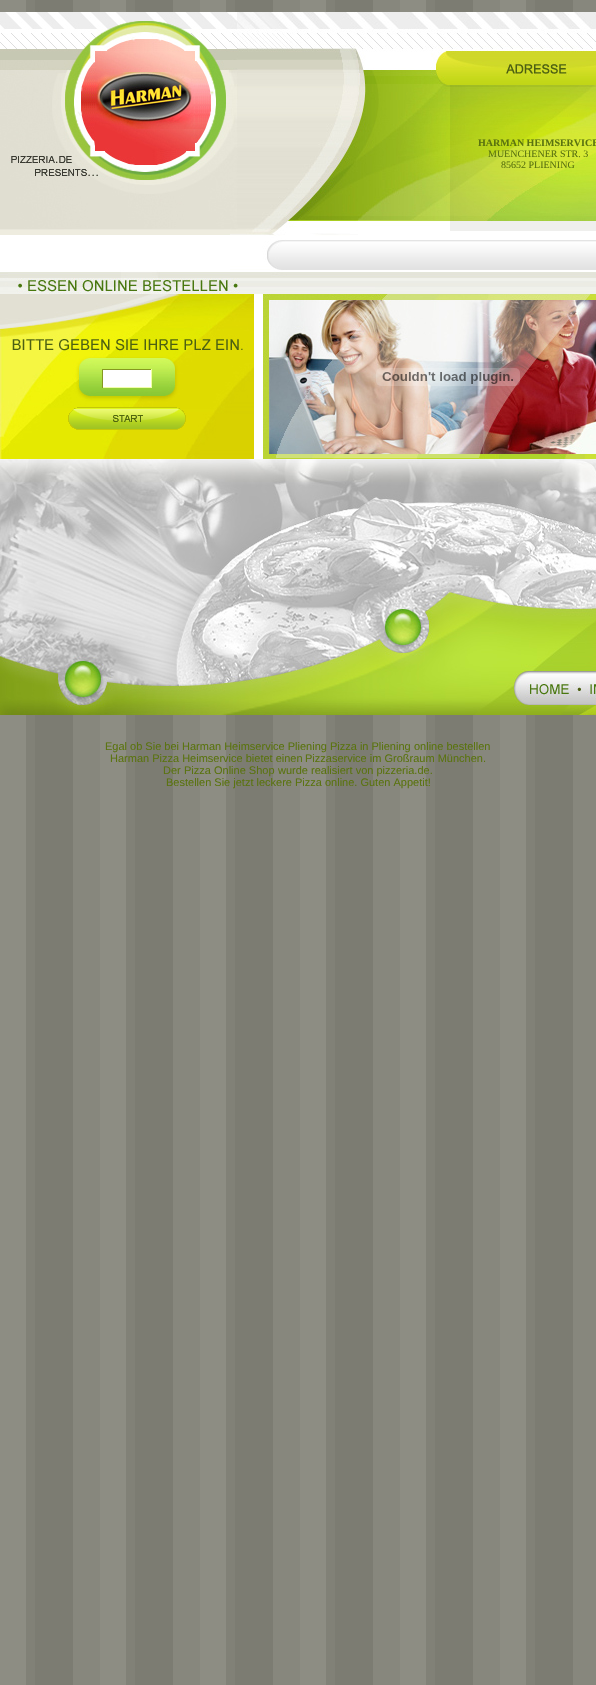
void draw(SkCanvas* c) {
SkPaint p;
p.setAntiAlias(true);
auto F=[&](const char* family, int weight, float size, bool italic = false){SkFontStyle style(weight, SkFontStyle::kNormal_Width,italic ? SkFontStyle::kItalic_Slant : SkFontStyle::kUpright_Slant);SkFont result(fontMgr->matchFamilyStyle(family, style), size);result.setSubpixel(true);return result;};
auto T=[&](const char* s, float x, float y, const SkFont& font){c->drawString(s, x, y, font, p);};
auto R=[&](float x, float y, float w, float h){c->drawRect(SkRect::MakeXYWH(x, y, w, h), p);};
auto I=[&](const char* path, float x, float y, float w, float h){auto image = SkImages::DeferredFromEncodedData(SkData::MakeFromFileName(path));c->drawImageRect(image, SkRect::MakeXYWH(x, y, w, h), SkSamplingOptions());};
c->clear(0xffffffff);
I("1.png",0,0,596,1685);
I("2.png",0,12,230,226);
I("3.png",230,12,220,229);
I("4.png",450,12,146,73);
I("5.png",450,85,146,136);
auto f1 = F("Liberation Serif",700,10);
p.setColor(0xff5a730f);
T("HARMAN HEIMSERVICE",478,146,f1);
auto f2 = F("Liberation Serif",400,10);
T("MUENCHENER STR. 3",488,157,f2);
T("85652 PLIENING",501,168,f2);
I("6.png",450,221,146,20);
I("7.png",0,238,230,40);
I("8.png",230,241,41,37);
I("9.png",271,241,325,28);
I("10.png",271,269,325,9);
I("11.png",0,278,254,16);
I("12.png",254,278,9,193);
I("13.png",263,278,333,16);
I("14.png",0,294,254,32);
I("15.png",263,294,333,165);
I("16.png",376,368,144,18);
I("17.png",0,326,254,133);
p.setColor(0xffffffff);
R(103,370,48,17);
p.setColor(0xff869821);
R(102,369,50,1);
p.setColor(0xfff1fea8);
R(151,369,1,19);
R(102,387,50,1);
p.setColor(0xff869821);
R(102,369,1,19);
I("18.png",68,407,118,23);
I("19.png",0,459,254,12);
I("20.png",263,459,333,12);
I("21.png",0,471,9,244);
I("22.png",9,471,587,113);
I("23.png",9,584,587,91);
I("24.png",9,675,516,40);
I("25.png",525,675,48,27);
I("26.png",573,675,13,40);
I("27.png",586,675,10,27);
I("28.png",525,702,48,13);
I("29.png",586,702,10,13);
auto f3 = F("Liberation Sans",400,11);
p.setColor(0xff5a730f);
T("Egal ob Sie bei",105,750,f3);
T("Harman Heimservice Pliening Pizza in Pliening",182,750,f3);
T("online bestellen",414,750,f3);
T("Harman Pizza Heimservice bietet einen",110,762,f3);
T("Pizzaservice im Großraum München",305,762,f3);
T(".",483,762,f3);
T("Der",163,774,f3);
T("Pizza Online Shop",184,774,f3);
T("wurde realisiert von pizzeria.de.",278,774,f3);
T("Bestellen Sie jetzt leckere Pizza online. Guten Appetit!",166,786,f3);
}
